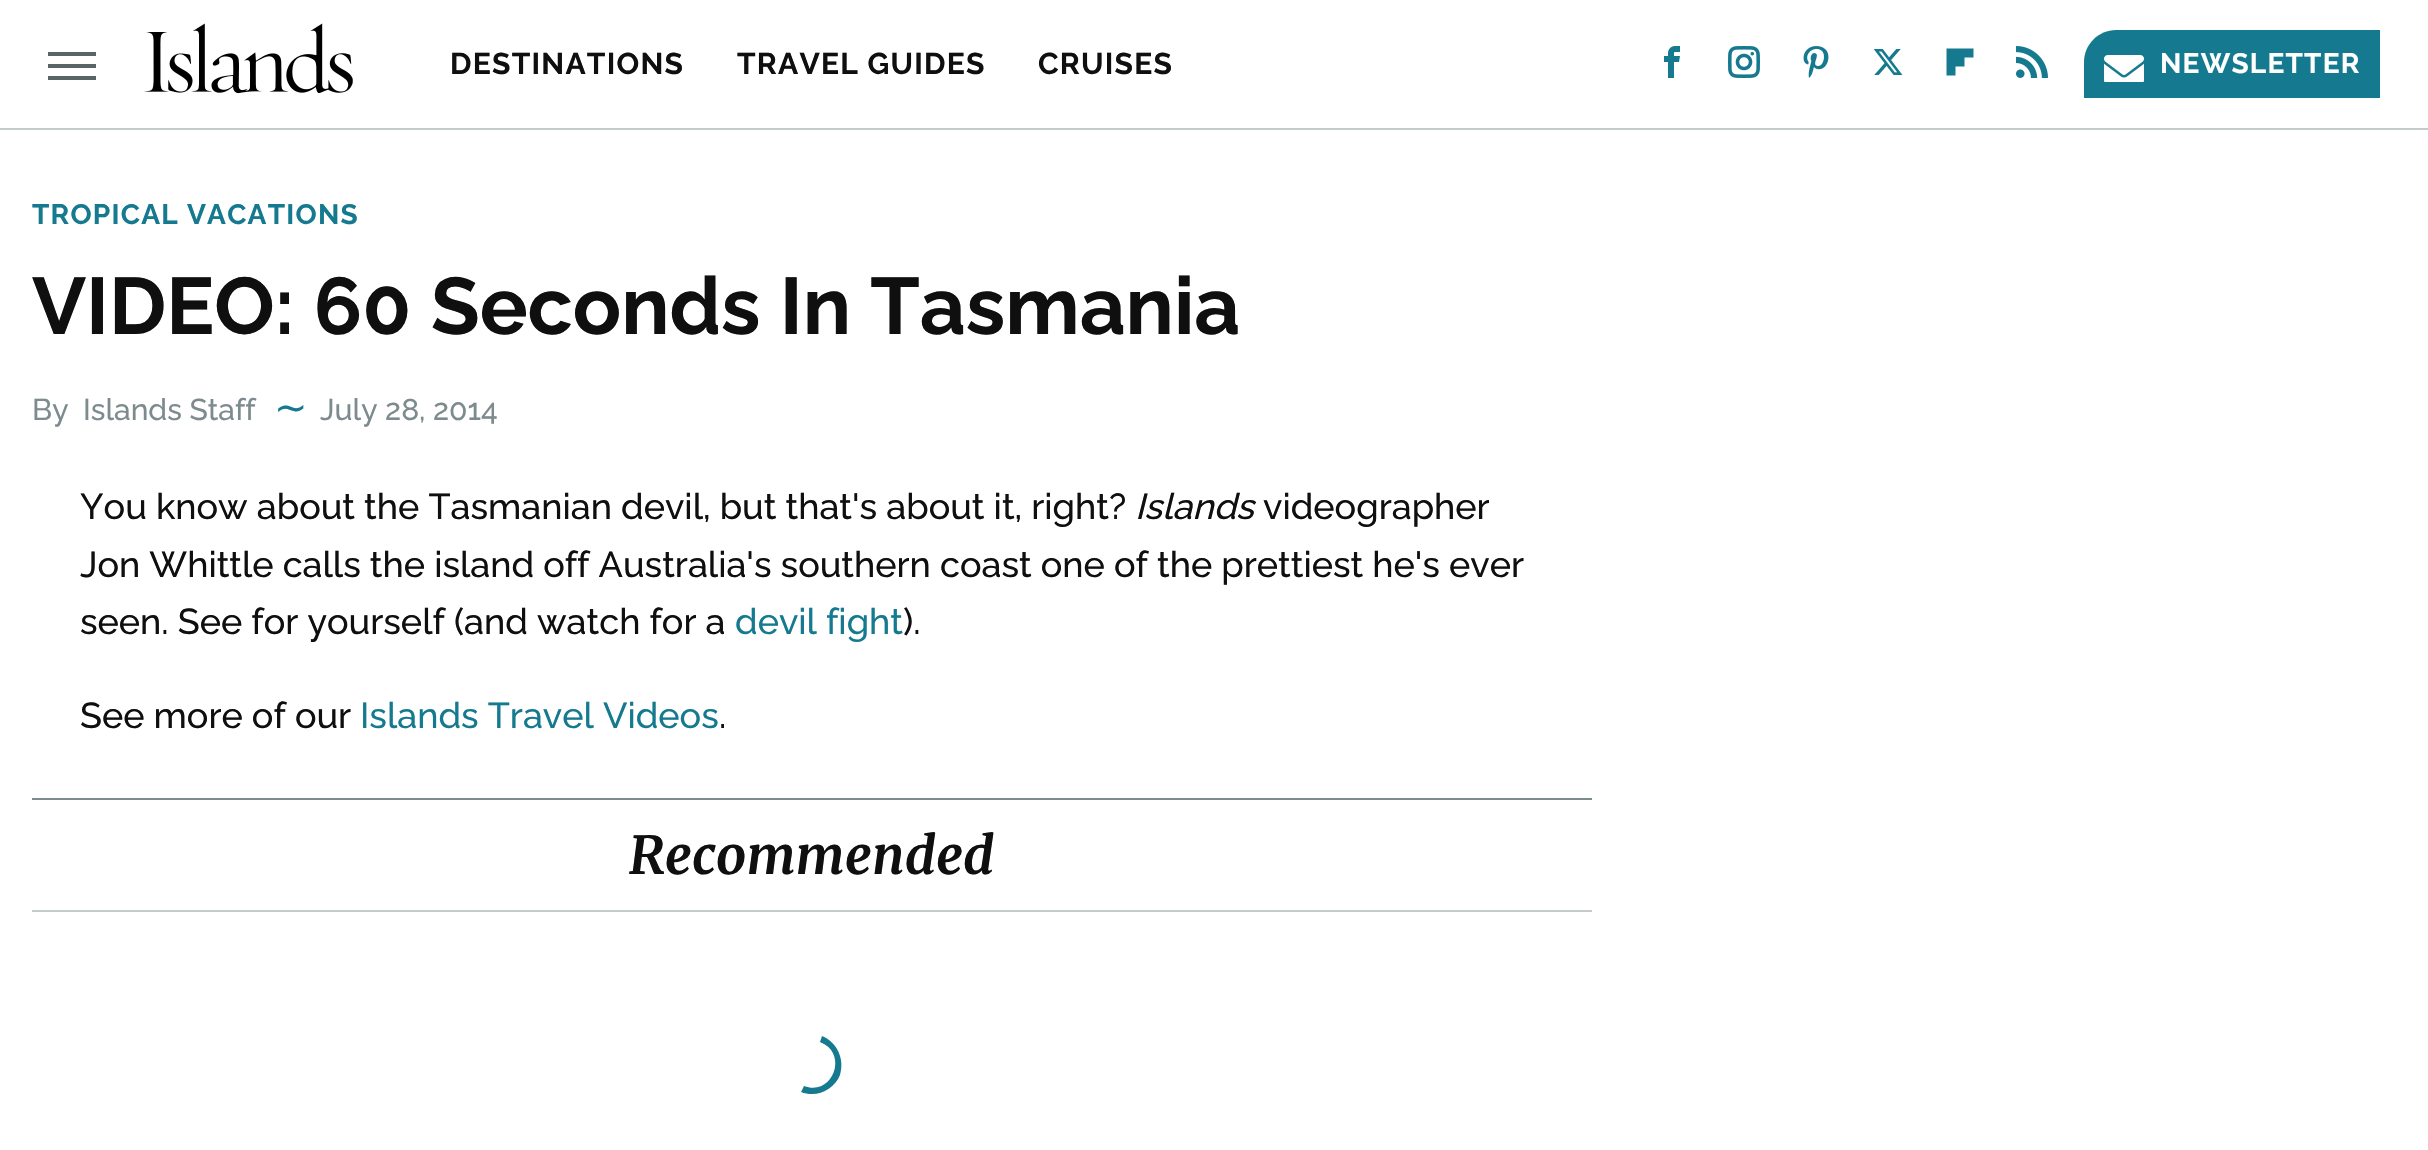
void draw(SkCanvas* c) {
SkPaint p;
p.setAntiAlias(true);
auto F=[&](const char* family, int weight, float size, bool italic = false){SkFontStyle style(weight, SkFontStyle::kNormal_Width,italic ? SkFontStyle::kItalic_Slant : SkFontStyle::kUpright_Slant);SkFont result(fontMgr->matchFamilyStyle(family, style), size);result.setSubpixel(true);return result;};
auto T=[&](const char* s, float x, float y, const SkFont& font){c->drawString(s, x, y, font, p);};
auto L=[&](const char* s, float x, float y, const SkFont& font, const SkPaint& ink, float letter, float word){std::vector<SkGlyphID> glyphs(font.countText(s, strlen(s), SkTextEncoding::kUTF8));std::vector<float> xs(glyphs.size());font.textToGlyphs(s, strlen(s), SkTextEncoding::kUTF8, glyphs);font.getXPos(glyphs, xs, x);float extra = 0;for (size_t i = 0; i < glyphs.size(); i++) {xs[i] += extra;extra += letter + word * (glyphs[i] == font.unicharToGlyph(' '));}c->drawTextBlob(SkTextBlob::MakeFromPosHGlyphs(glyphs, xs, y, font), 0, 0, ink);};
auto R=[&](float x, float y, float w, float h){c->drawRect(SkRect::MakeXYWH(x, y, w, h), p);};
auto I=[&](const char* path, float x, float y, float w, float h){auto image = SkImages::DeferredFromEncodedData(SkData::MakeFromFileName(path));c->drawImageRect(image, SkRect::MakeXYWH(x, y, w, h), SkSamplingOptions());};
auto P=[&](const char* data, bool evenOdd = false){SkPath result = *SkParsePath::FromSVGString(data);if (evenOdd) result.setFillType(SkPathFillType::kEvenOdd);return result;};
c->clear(0xffffffff);
p.setColor(0xffc3cbcc);
R(0,128,2428,2);
p.setColor(0xff596466);
R(48,52,48,4);
R(48,64,48,4);
R(48,76,48,4);
I("1.png",144,23,209,71);
auto f1 = F("Raleway",700,30);
p.setColor(0xff0f0f0f);
L("DESTINATIONS",450,74,f1,p,1.25,0);
L("TRAVEL GUIDES",737,74,f1,p,1.25,0);
L("CRUISES",1038,74,f1,p,1.25,0);
I("2.png",1664,46,16,32);
I("3.png",1728,46,32,32);
I("4.png",1803,46,26,32);
I("5.png",1873,49,30,26);
p.setColor(0xff157a8f);
c->drawPath(P("M1960 48.5h13.5v9h-9v9h-9v9h-9v-27z"),p);
I("6.png",2016,46,32,32);
c->drawPath(P("M2116 30h264v68h-296v-36c0-17.5 14.5-32 32-32z"),p);
I("7.png",2104,55,40,27);
auto f2 = F("Raleway",700,28);
p.setColor(0xffffffff);
L("NEWSLETTER",2160,73,f2,p,1.25,0);
p.setColor(0xff157a8f);
L("TROPICAL VACATIONS",32,224,f2,p,1.25,0);
auto f3 = F("Raleway",700,80);
p.setColor(0xff0f0f0f);
T("VIDEO: 60 Seconds In Tasmania",32,334,f3);
auto f4 = F("Raleway",500,30);
p.setColor(0xff7d8b8e);
T("By",32,420,f4);
T("Islands Staff",83,420,f4);
auto f5 = F("DejaVu Sans",400,40);
p.setColor(0xff157a8f);
T("∼",274,421,f5);
p.setColor(0xff7d8b8e);
T("July 28, 2014",320,420,f4);
auto f6 = F("Raleway",500,36);
p.setColor(0xff0f0f0f);
T("You know about the Tasmanian devil, but that's about it, right?",80,519,f6);
auto f7 = F("Raleway",500,36,true);
T("Islands",1135,519,f7);
T("videographer",1263,519,f6);
T("Jon Whittle calls the island off Australia's southern coast one of the prettiest he's ever",80,577,f6);
T("seen. See for yourself (and watch for a",80,634,f6);
p.setColor(0xff157a8f);
T("devil fight",735,634,f6);
p.setColor(0xff0f0f0f);
T(").",903,634,f6);
T("See more of our",80,728,f6);
p.setColor(0xff157a8f);
T("Islands Travel Videos",360,728,f6);
p.setColor(0xff0f0f0f);
T(".",719,728,f6);
p.setColor(0xff7d8b8e);
R(32,798,1560,2);
p.setColor(0xffc3cbcc);
R(32,910,1560,2);
auto f8 = F("Merriweather",700,52,true);
p.setColor(0xff0f0f0f);
T("Recommended",629,874,f8);
p.setColor(0xff157a8f);
c->drawPath(P("M801 1092c16 6 33-2 39-17c5-16-3-33-18-39l-2 6c29 11 13 55-16 44z"),p);
}
